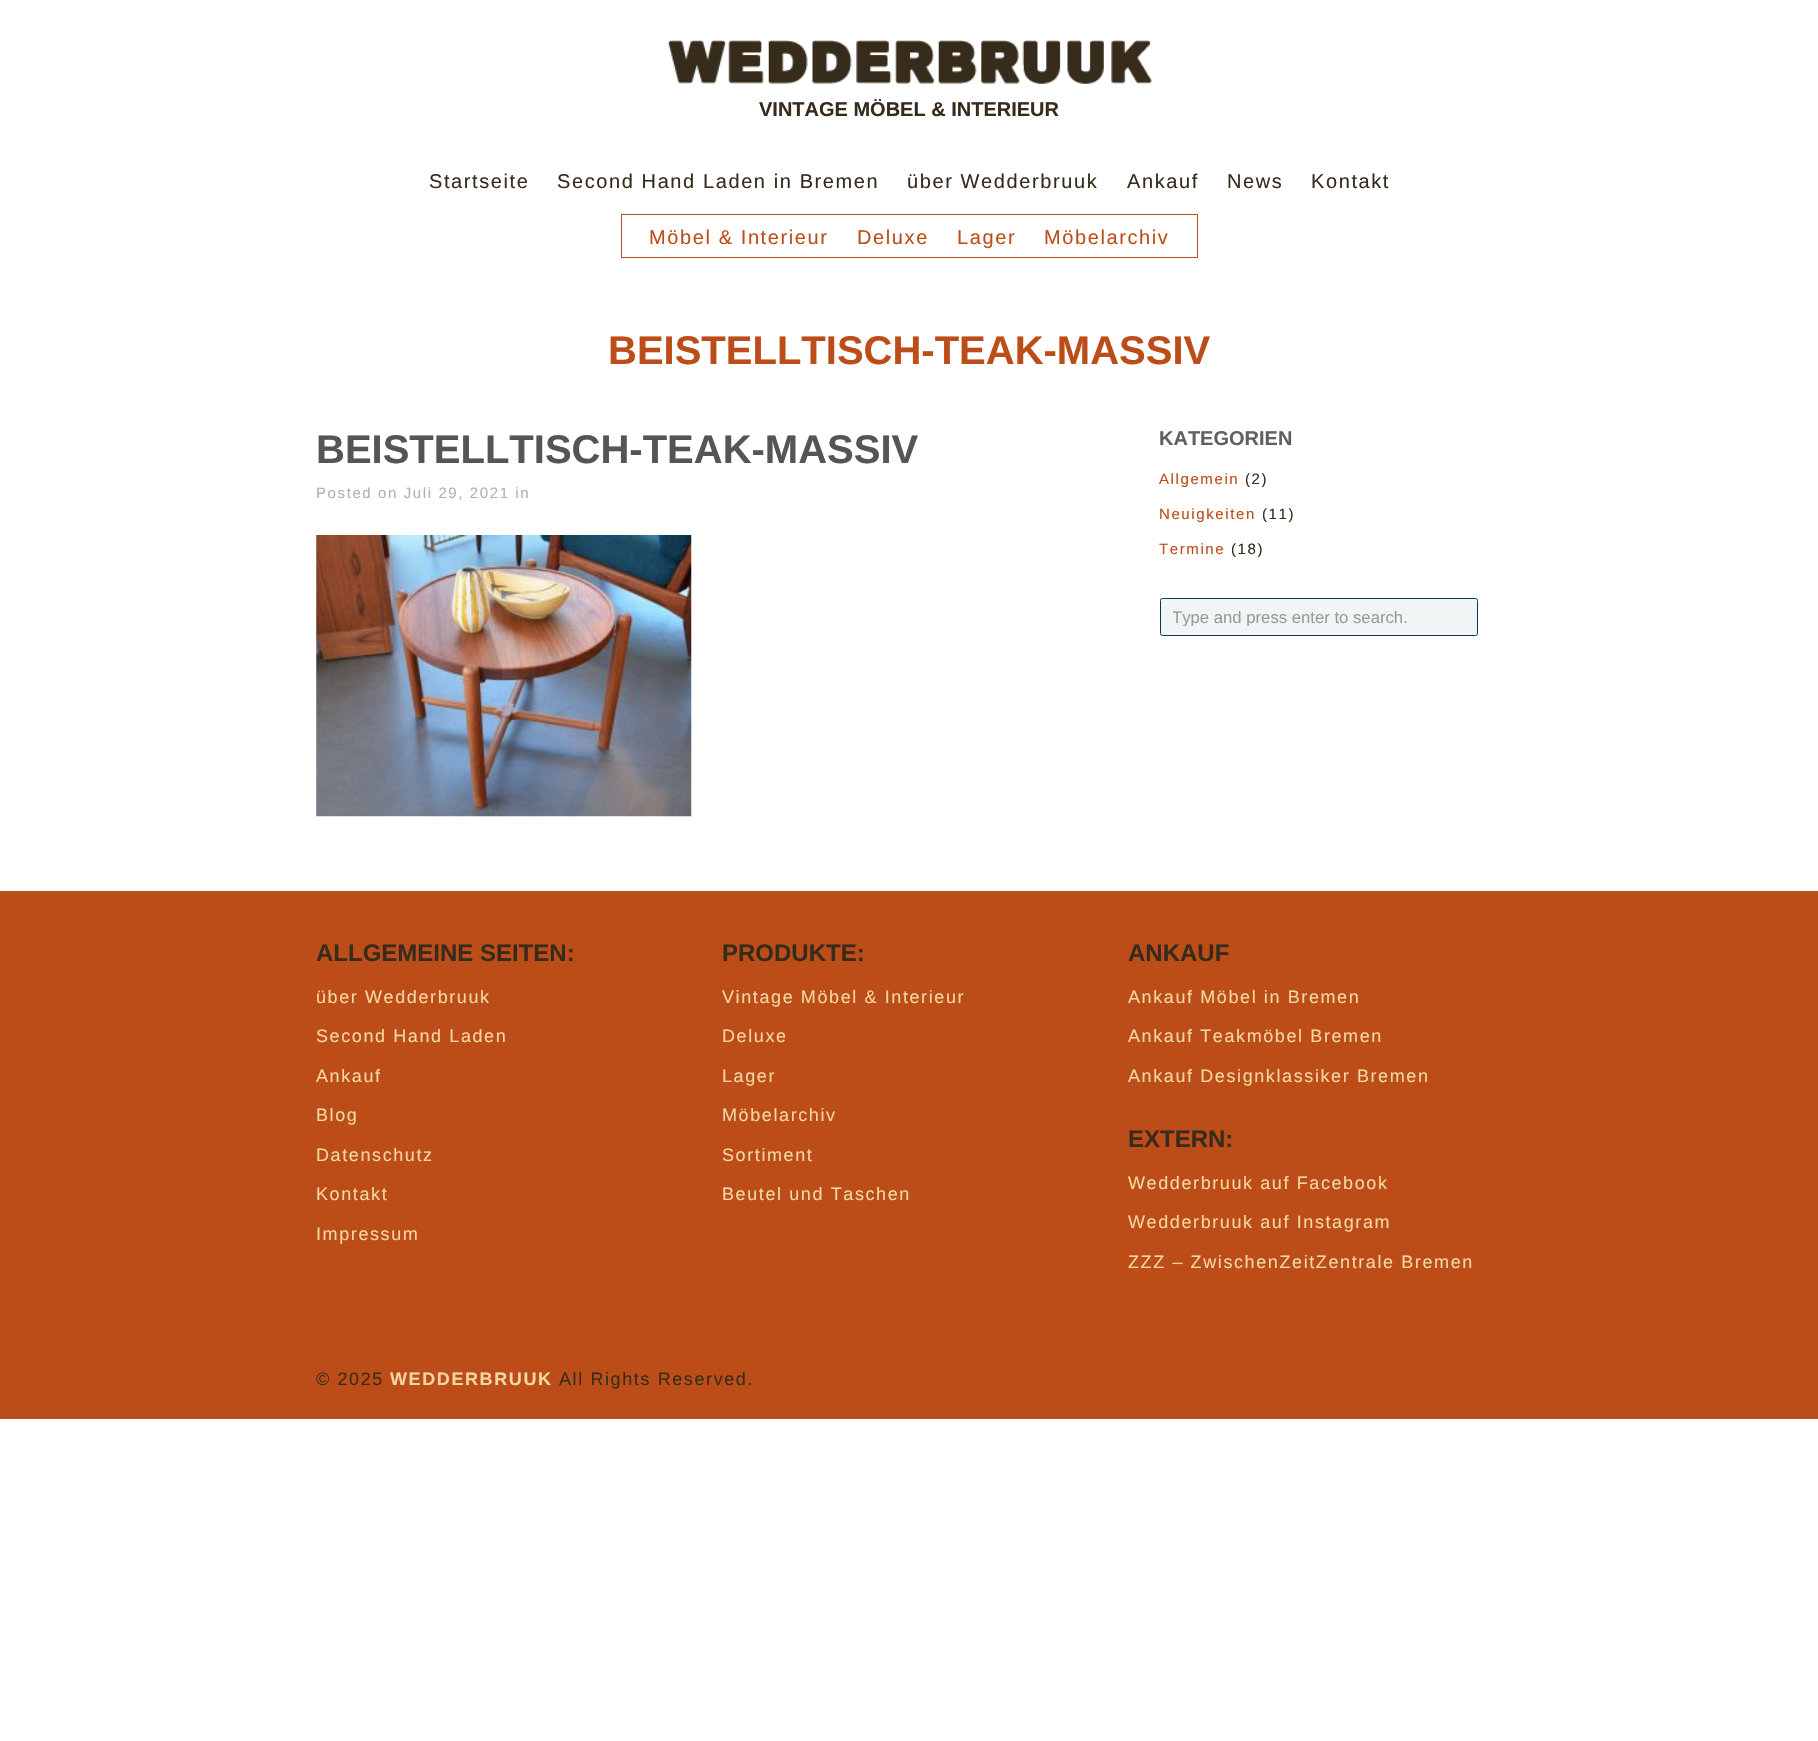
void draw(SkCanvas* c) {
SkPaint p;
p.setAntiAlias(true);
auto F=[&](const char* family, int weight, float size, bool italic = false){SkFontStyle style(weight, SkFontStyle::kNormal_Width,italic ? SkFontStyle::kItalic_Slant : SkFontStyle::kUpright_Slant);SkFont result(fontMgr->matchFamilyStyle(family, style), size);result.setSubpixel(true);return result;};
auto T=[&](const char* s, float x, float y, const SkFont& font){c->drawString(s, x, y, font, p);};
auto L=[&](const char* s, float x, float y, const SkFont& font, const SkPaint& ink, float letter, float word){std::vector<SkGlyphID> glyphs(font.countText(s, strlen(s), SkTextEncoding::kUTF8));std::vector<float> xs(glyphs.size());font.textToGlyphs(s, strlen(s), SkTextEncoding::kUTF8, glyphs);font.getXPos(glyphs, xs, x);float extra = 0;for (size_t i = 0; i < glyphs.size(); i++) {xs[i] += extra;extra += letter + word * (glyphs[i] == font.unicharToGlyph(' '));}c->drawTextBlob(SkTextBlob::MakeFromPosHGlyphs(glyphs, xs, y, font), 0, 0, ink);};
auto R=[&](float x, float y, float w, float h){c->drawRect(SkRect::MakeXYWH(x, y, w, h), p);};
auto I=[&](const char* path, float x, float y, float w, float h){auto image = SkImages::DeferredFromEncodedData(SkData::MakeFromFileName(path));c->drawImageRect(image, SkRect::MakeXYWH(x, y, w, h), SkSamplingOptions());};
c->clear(0xffffffff);
I("1.png",668,40,484,44);
auto f1 = F("Liberation Sans",700,20);
p.setColor(0xff372c1c);
T("VINTAGE MÖBEL & INTERIEUR",759,116,f1);
auto f2 = F("Liberation Sans",400,20);
L("Startseite",429,188,f2,p,1.6,0);
L("Second Hand Laden in Bremen",557,188,f2,p,1.6,0);
L("über Wedderbruuk",907,188,f2,p,1.6,0);
L("Ankauf",1127,188,f2,p,1.6,0);
L("News",1227,188,f2,p,1.6,0);
L("Kontakt",1311,188,f2,p,1.6,0);
p.setStroke(true);
p.setStrokeWidth(1);
p.setColor(0xffbd4d18);
c->drawRect(SkRect::MakeXYWH(621.5,214.5,576,43),p);
p.setStroke(false);
L("Möbel & Interieur",649,244,f2,p,1.6,0);
L("Deluxe",857,244,f2,p,1.6,0);
L("Lager",957,244,f2,p,1.6,0);
L("Möbelarchiv",1044,244,f2,p,1.6,0);
auto f3 = F("Liberation Sans",700,40);
T("BEISTELLTISCH-TEAK-MASSIV",608,364,f3);
p.setColor(0xff555555);
T("BEISTELLTISCH-TEAK-MASSIV",316,463,f3);
auto f4 = F("Liberation Sans",400,15);
p.setColor(0xffb0b0ad);
L("Posted on Juli 29, 2021 in",316,498,f4,p,1.6,0);
I("2.png",316,535,376,282);
p.setColor(0xff606060);
T("KATEGORIEN",1159,445,f1);
p.setColor(0xffbd4d18);
L("Allgemein",1159,484,f4,p,1.6,0);
p.setColor(0xff372c1c);
L("(2)",1245,484,f4,p,1.6,0);
p.setColor(0xffbd4d18);
L("Neuigkeiten",1159,519,f4,p,1.6,0);
p.setColor(0xff372c1c);
L("(11)",1262,519,f4,p,1.6,0);
p.setColor(0xffbd4d18);
L("Termine",1159,554,f4,p,1.6,0);
p.setColor(0xff372c1c);
L("(18)",1231,554,f4,p,1.6,0);
p.setColor(0xfff2f5f6);
c->drawRoundRect(SkRect::MakeXYWH(1160.5,598.5,317,37),2,2,p);
p.setStroke(true);
p.setColor(0xff043c4d);
c->drawRoundRect(SkRect::MakeXYWH(1160.5,598.5,317,37),2,2,p);
c->save();
c->clipRect(SkRect::MakeXYWH(1173,608,292,18));
auto f5 = F("Liberation Sans",400,16.7);
p.setStroke(false);
p.setColor(0xff9a9a9a);
T("Type and press enter to search.",1172,623,f5);
c->restore();
p.setColor(0xffbd4d18);
R(0,891,1818,528);
auto f6 = F("Liberation Sans",700,24);
p.setColor(0xff372c1c);
T("ALLGEMEINE SEITEN:",316,961,f6);
auto f7 = F("Liberation Sans",400,18);
p.setColor(0xfff3d7a3);
L("über Wedderbruuk",316,1003,f7,p,1.6,0);
L("Second Hand Laden",316,1042,f7,p,1.6,0);
L("Ankauf",316,1082,f7,p,1.6,0);
L("Blog",316,1121,f7,p,1.6,0);
L("Datenschutz",316,1161,f7,p,1.6,0);
L("Kontakt",316,1200,f7,p,1.6,0);
L("Impressum",316,1240,f7,p,1.6,0);
p.setColor(0xff372c1c);
T("PRODUKTE:",722,961,f6);
p.setColor(0xfff3d7a3);
L("Vintage Möbel & Interieur",722,1003,f7,p,1.6,0);
L("Deluxe",722,1042,f7,p,1.6,0);
L("Lager",722,1082,f7,p,1.6,0);
L("Möbelarchiv",722,1121,f7,p,1.6,0);
L("Sortiment",722,1161,f7,p,1.6,0);
L("Beutel und Taschen",722,1200,f7,p,1.6,0);
p.setColor(0xff372c1c);
T("ANKAUF",1128,961,f6);
p.setColor(0xfff3d7a3);
L("Ankauf Möbel in Bremen",1128,1003,f7,p,1.6,0);
L("Ankauf Teakmöbel Bremen",1128,1042,f7,p,1.6,0);
L("Ankauf Designklassiker Bremen",1128,1082,f7,p,1.6,0);
p.setColor(0xff372c1c);
T("EXTERN:",1128,1147,f6);
p.setColor(0xfff3d7a3);
L("Wedderbruuk auf Facebook",1128,1189,f7,p,1.6,0);
L("Wedderbruuk auf Instagram",1128,1228,f7,p,1.6,0);
L("ZZZ – ZwischenZeitZentrale Bremen",1128,1268,f7,p,1.6,0);
p.setColor(0xff372c1c);
L("© 2025",316,1385,f7,p,1.6,0);
auto f8 = F("Liberation Sans",700,18);
p.setColor(0xfff3d7a3);
L("WEDDERBRUUK",390,1385,f8,p,1.6,0);
p.setColor(0xff372c1c);
L("All Rights Reserved.",559,1385,f7,p,1.6,0);
}
